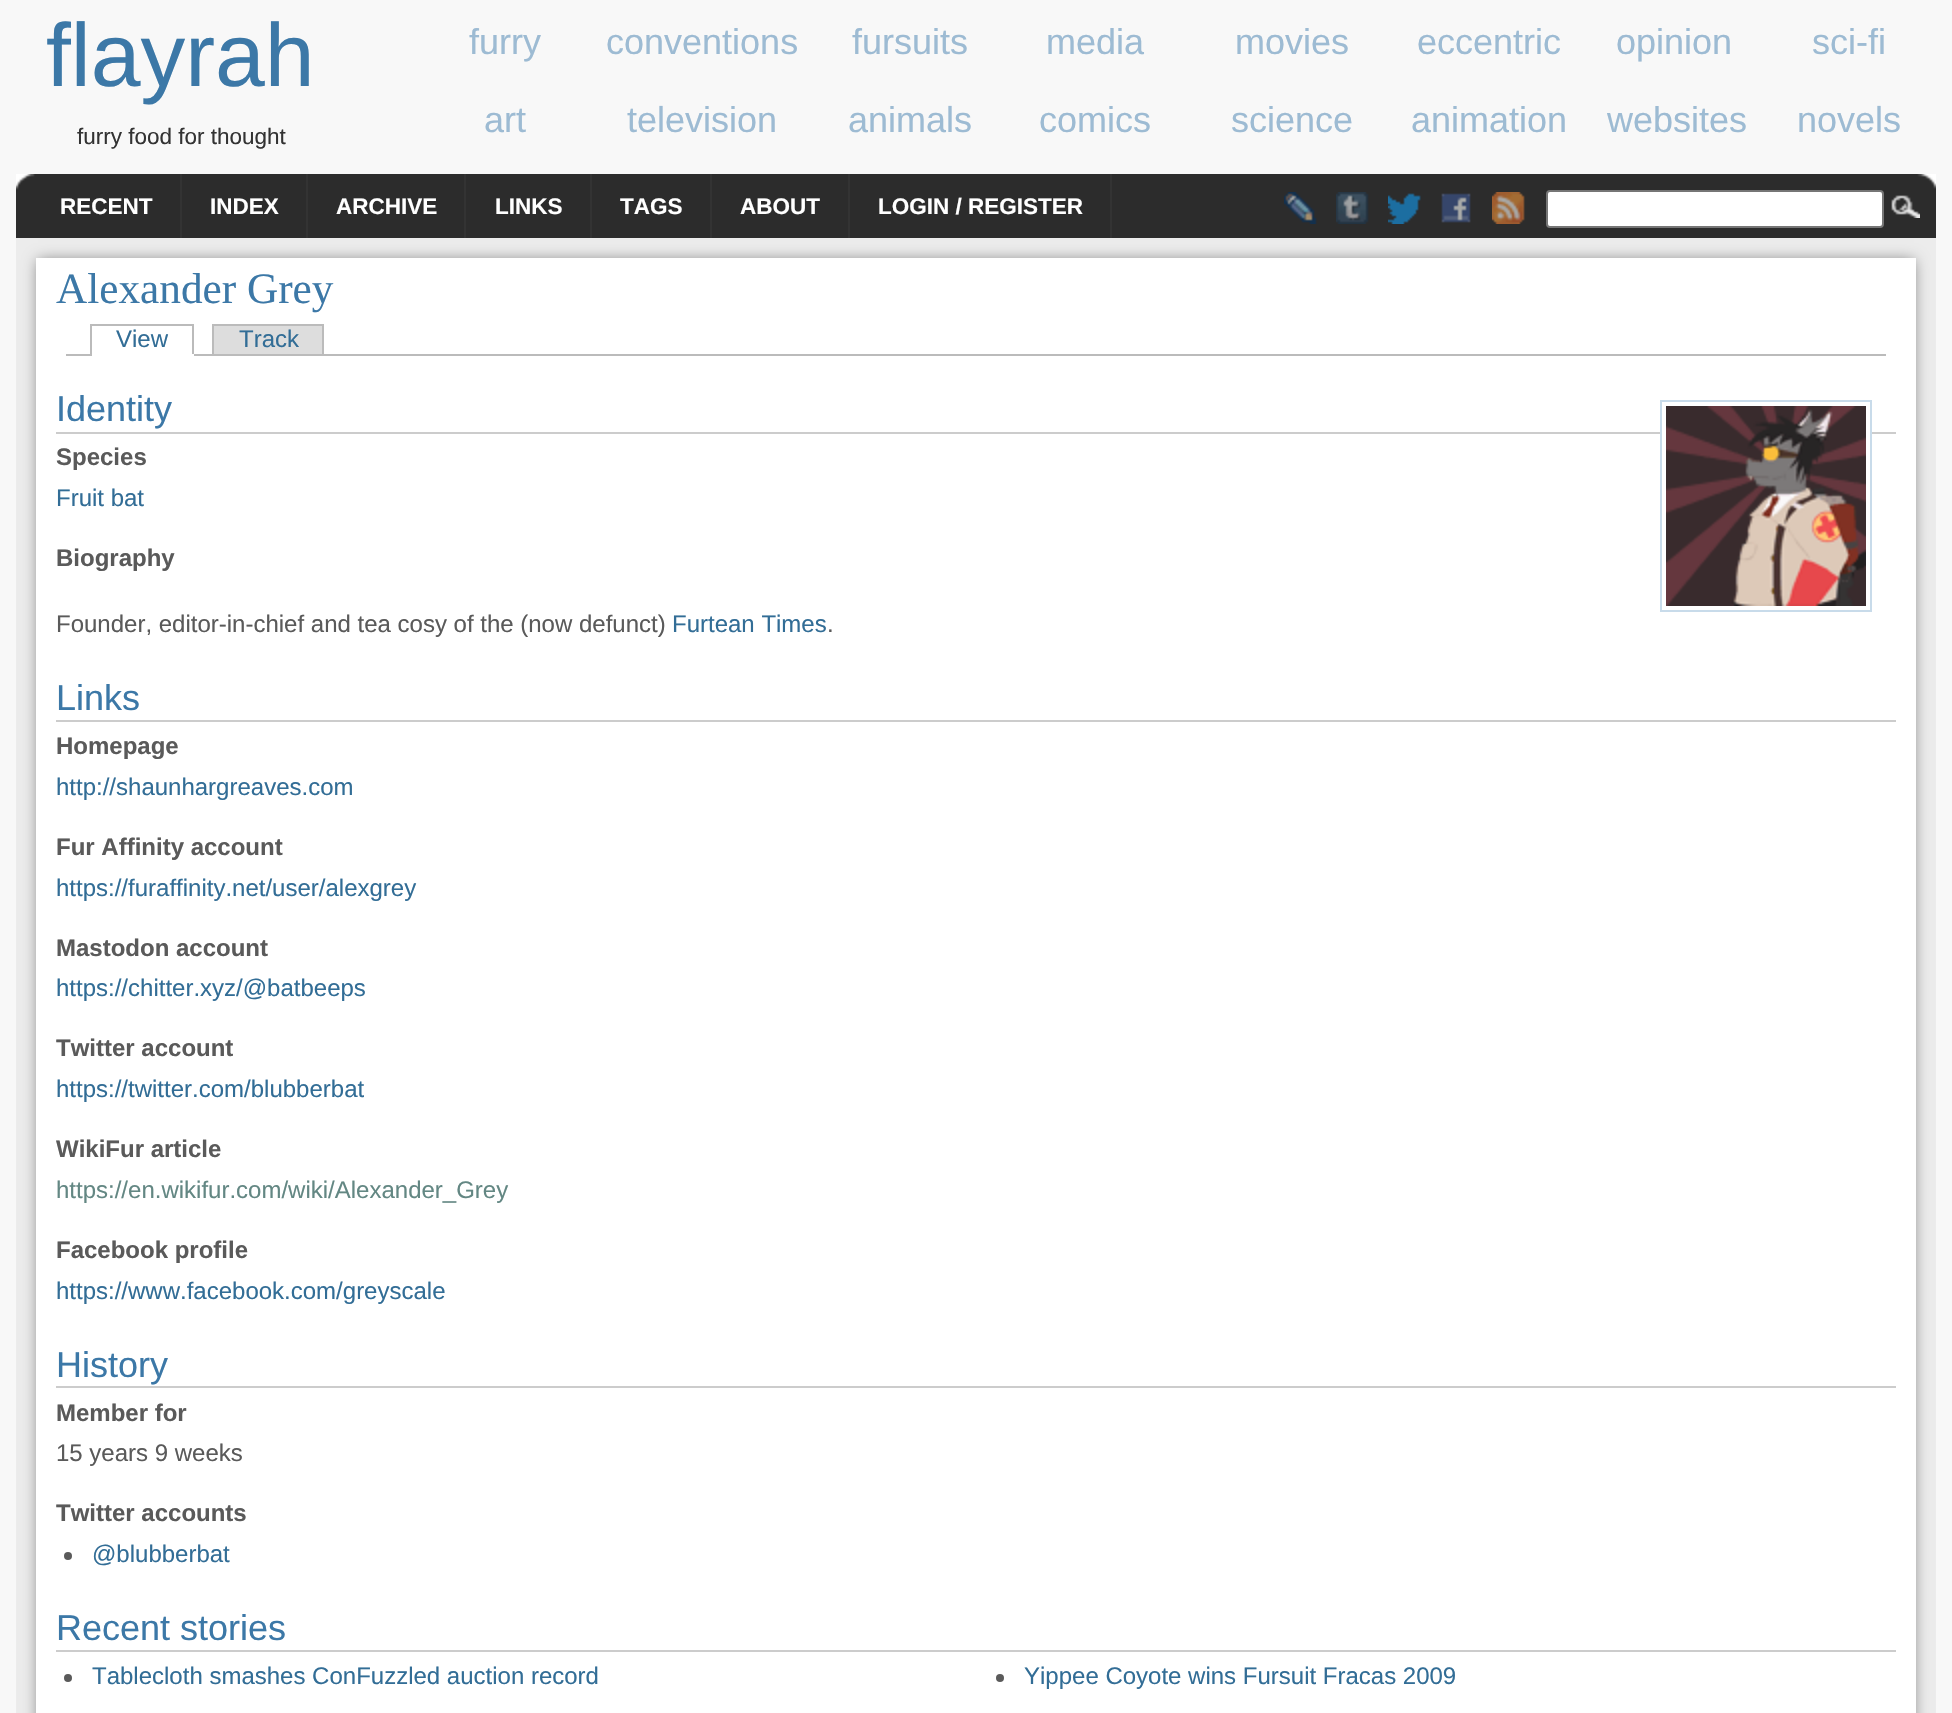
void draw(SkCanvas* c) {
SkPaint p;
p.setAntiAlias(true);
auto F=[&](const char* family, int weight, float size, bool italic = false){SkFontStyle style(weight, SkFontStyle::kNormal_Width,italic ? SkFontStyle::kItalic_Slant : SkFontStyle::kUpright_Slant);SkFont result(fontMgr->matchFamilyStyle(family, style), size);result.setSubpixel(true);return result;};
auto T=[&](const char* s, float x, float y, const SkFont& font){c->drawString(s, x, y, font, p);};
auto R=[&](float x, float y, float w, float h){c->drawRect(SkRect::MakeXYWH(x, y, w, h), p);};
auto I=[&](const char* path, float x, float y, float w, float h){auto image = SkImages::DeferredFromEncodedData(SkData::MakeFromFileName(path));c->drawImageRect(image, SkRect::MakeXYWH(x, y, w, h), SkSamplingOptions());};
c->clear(0xfff8f8f8);
auto f1 = F("Liberation Sans",400,89.5);
p.setColor(0xff3c78a7);
T("flayrah",46,86,f1);
auto f2 = F("Liberation Sans",400,22.5);
p.setColor(0xff333333);
T("furry food for thought",77,144,f2);
auto f3 = F("Liberation Sans",400,36);
p.setColor(0xff9dbbd3);
T("furry",469,54,f3);
T("conventions",606,54,f3);
T("fursuits",852,54,f3);
T("media",1046,54,f3);
T("movies",1235,54,f3);
T("eccentric",1417,54,f3);
T("opinion",1616,54,f3);
T("sci-fi",1812,54,f3);
T("art",484,132,f3);
T("television",627,132,f3);
T("animals",848,132,f3);
T("comics",1039,132,f3);
T("science",1231,132,f3);
T("animation",1411,132,f3);
T("websites",1607,132,f3);
T("novels",1797,132,f3);
p.setColor(0xff2c2c2c);
R(16,190,1920,48);
I("1.png",16,174,1920,16);
p.setColor(0xff333333);
R(180,174,2,64);
auto f4 = F("Liberation Sans",700,22.5);
p.setColor(0xffffffff);
T("RECENT",60,214,f4);
p.setColor(0xff333333);
R(306,174,2,64);
p.setColor(0xffffffff);
T("INDEX",210,214,f4);
p.setColor(0xff333333);
R(464,174,2,64);
p.setColor(0xffffffff);
T("ARCHIVE",336,214,f4);
p.setColor(0xff333333);
R(590,174,2,64);
p.setColor(0xffffffff);
T("LINKS",495,214,f4);
p.setColor(0xff333333);
R(710,174,2,64);
p.setColor(0xffffffff);
T("TAGS",620,214,f4);
p.setColor(0xff333333);
R(848,174,2,64);
p.setColor(0xffffffff);
T("ABOUT",740,214,f4);
p.setColor(0xff333333);
R(1110,174,2,64);
p.setColor(0xffffffff);
T("LOGIN / REGISTER",878,214,f4);
I("2.png",1284,192,33,32);
I("3.png",1336,192,33,32);
I("4.png",1388,193,33,31);
I("5.png",1441,193,30,30);
I("6.png",1492,192,33,32);
c->drawRoundRect(SkRect::MakeXYWH(1547,191,336,36),3,3,p);
p.setStroke(true);
p.setStrokeWidth(2);
p.setColor(0xff767676);
c->drawRoundRect(SkRect::MakeXYWH(1547,191,336,36),3,3,p);
I("7.png",1891,195,29,23);
p.setStroke(false);
p.setColor(0xffececec);
R(16,238,1920,1475);
p.setColor(0xff808080);
p.setMaskFilter(SkMaskFilter::MakeBlur(kNormal_SkBlurStyle, 7));
c->drawRect(SkRect::MakeXYWH(38,260,1876,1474),p);
p.setMaskFilter(nullptr);
p.setColor(0xffffffff);
R(36,258,1880,1455);
auto f5 = F("Liberation Serif",400,43.25);
p.setColor(0xff3c78a7);
T("Alexander Grey",56,303,f5);
p.setColor(0xffbbbbbb);
R(66,354,1820,2);
auto f6 = F("Liberation Sans",400,24);
p.setColor(0xff326d96);
T("View",116,347,f6);
p.setColor(0xffbbbbbb);
R(90,324,104,2);
R(192,324,2,32);
p.setColor(0xffffffff);
R(90,354,104,2);
p.setColor(0xffbbbbbb);
R(90,324,2,32);
p.setColor(0xffdddddd);
R(214,326,108,28);
p.setColor(0xff326d96);
T("Track",239,347,f6);
p.setColor(0xffbbbbbb);
R(212,324,112,2);
R(322,324,2,30);
R(212,324,2,30);
p.setColor(0xffcccccc);
R(56,432,1840,2);
p.setColor(0xff3c78a7);
T("Identity",56,421,f3);
p.setColor(0xffffffff);
R(1662,432,208,2);
p.setStroke(true);
p.setColor(0xffc8dbea);
c->drawRect(SkRect::MakeXYWH(1661,401,210,210),p);
I("8.png",1666,406,200,200);
auto f7 = F("Liberation Sans",700,24);
p.setStroke(false);
p.setColor(0xff5a5a5a);
T("Species",56,465,f7);
p.setColor(0xff326d96);
T("Fruit bat",56,506,f6);
p.setColor(0xff5a5a5a);
T("Biography",56,566,f7);
T("Founder, editor-in-chief and tea cosy of the (now defunct)",56,632,f6);
p.setColor(0xff326d96);
T("Furtean Times",672,632,f6);
p.setColor(0xff5a5a5a);
T(".",827,632,f6);
p.setColor(0xffcccccc);
R(56,720,1840,2);
p.setColor(0xff3c78a7);
T("Links",56,710,f3);
p.setColor(0xff5a5a5a);
T("Homepage",56,754,f7);
p.setColor(0xff326d96);
T("http://shaunhargreaves.com",56,795,f6);
p.setColor(0xff5a5a5a);
T("Fur Affinity account",56,855,f7);
p.setColor(0xff326d96);
T("https://furaffinity.net/user/alexgrey",56,896,f6);
p.setColor(0xff5a5a5a);
T("Mastodon account",56,956,f7);
p.setColor(0xff326d96);
T("https://chitter.xyz/@batbeeps",56,996,f6);
p.setColor(0xff5a5a5a);
T("Twitter account",56,1056,f7);
p.setColor(0xff326d96);
T("https://twitter.com/blubberbat",56,1097,f6);
p.setColor(0xff5a5a5a);
T("WikiFur article",56,1157,f7);
p.setColor(0xff638783);
T("https://en.wikifur.com/wiki/Alexander_Grey",56,1198,f6);
p.setColor(0xff5a5a5a);
T("Facebook profile",56,1258,f7);
p.setColor(0xff326d96);
T("https://www.facebook.com/greyscale",56,1299,f6);
p.setColor(0xffcccccc);
R(56,1386,1840,2);
p.setColor(0xff3c78a7);
T("History",56,1377,f3);
p.setColor(0xff5a5a5a);
T("Member for",56,1421,f7);
T("15 years 9 weeks",56,1461,f6);
T("Twitter accounts",56,1521,f7);
c->drawCircle(68,1556,4,p);
p.setColor(0xff326d96);
T("@blubberbat",92,1562,f6);
p.setColor(0xffcccccc);
R(56,1650,1840,2);
p.setColor(0xff3c78a7);
T("Recent stories",56,1640,f3);
p.setColor(0xff5a5a5a);
c->drawCircle(68,1678,4,p);
p.setColor(0xff326d96);
T("Tablecloth smashes ConFuzzled auction record",92,1684,f6);
p.setColor(0xff5a5a5a);
c->drawCircle(1000,1678,4,p);
p.setColor(0xff326d96);
T("Yippee Coyote wins Fursuit Fracas 2009",1024,1684,f6);
}
